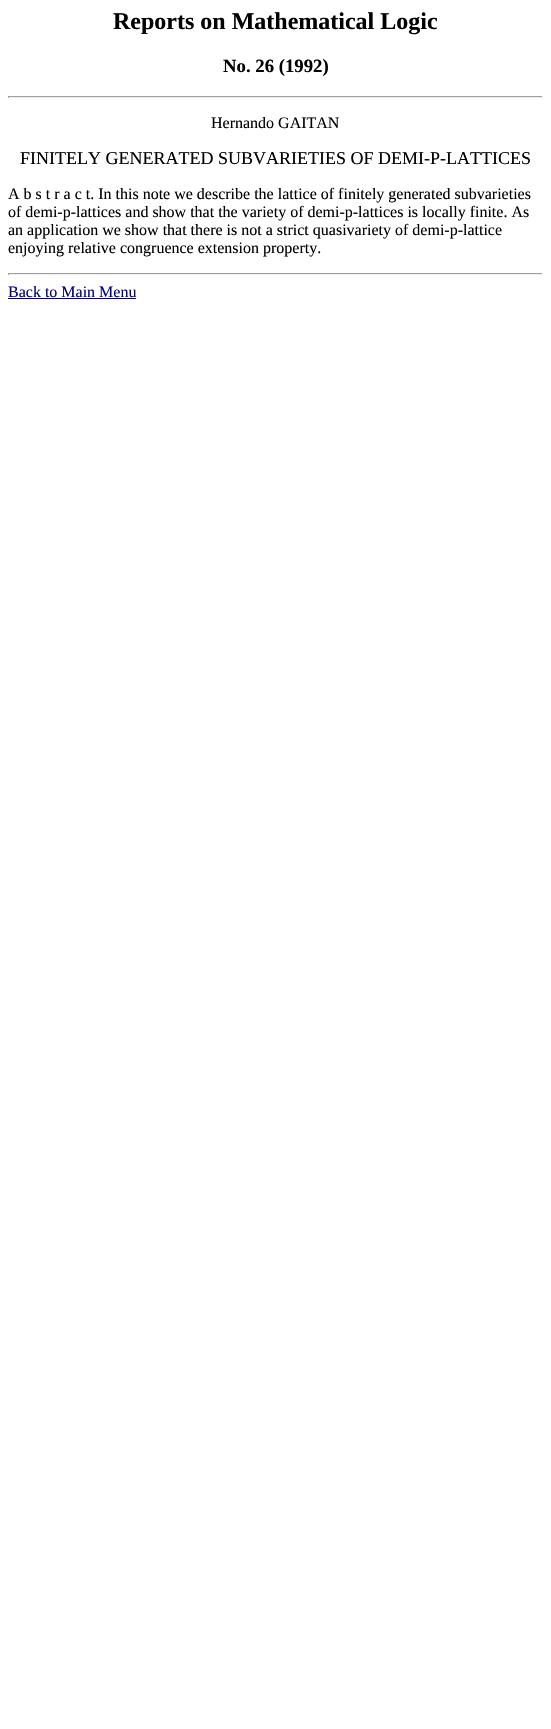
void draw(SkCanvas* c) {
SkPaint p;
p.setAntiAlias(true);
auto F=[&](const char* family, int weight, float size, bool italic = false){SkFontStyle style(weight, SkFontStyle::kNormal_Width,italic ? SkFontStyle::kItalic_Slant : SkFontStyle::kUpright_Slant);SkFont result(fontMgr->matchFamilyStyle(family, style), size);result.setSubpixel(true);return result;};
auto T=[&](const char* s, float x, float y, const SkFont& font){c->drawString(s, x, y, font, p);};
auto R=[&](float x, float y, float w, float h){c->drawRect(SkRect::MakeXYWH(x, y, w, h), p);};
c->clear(0xffffffff);
auto f1 = F("Liberation Serif",700,24);
p.setColor(0xff000000);
T("Reports on Mathematical Logic",113,29,f1);
auto f2 = F("Liberation Serif",700,18.75);
T("No. 26 (1992)",223,72,f2);
p.setColor(0xff9f9f9f);
R(8,96,535,1);
p.setColor(0xffeeeeee);
R(542,96,1,2);
R(8,97,535,1);
p.setColor(0xff9f9f9f);
R(8,96,1,2);
auto f3 = F("Liberation Serif",400,16);
p.setColor(0xff000000);
T("Hernando GAITAN",211,128,f3);
auto f4 = F("Liberation Serif",400,18);
T("FINITELY GENERATED SUBVARIETIES OF DEMI-P-LATTICES",20,164,f4);
T("A b s t r a c t. In this note we describe the lattice of finitely generated subvarieties",8,199,f3);
T("of demi-p-lattices and show that the variety of demi-p-lattices is locally finite. As",8,217,f3);
T("an application we show that there is not a strict quasivariety of demi-p-lattice",8,235,f3);
T("enjoying relative congruence extension property.",8,253,f3);
p.setColor(0xff9f9f9f);
R(8,273,535,1);
p.setColor(0xffeeeeee);
R(542,273,1,2);
R(8,274,535,1);
p.setColor(0xff9f9f9f);
R(8,273,1,2);
p.setColor(0xff000080);
T("Back to Main Menu",8,297,f3);
R(8,298,128,1);
}
